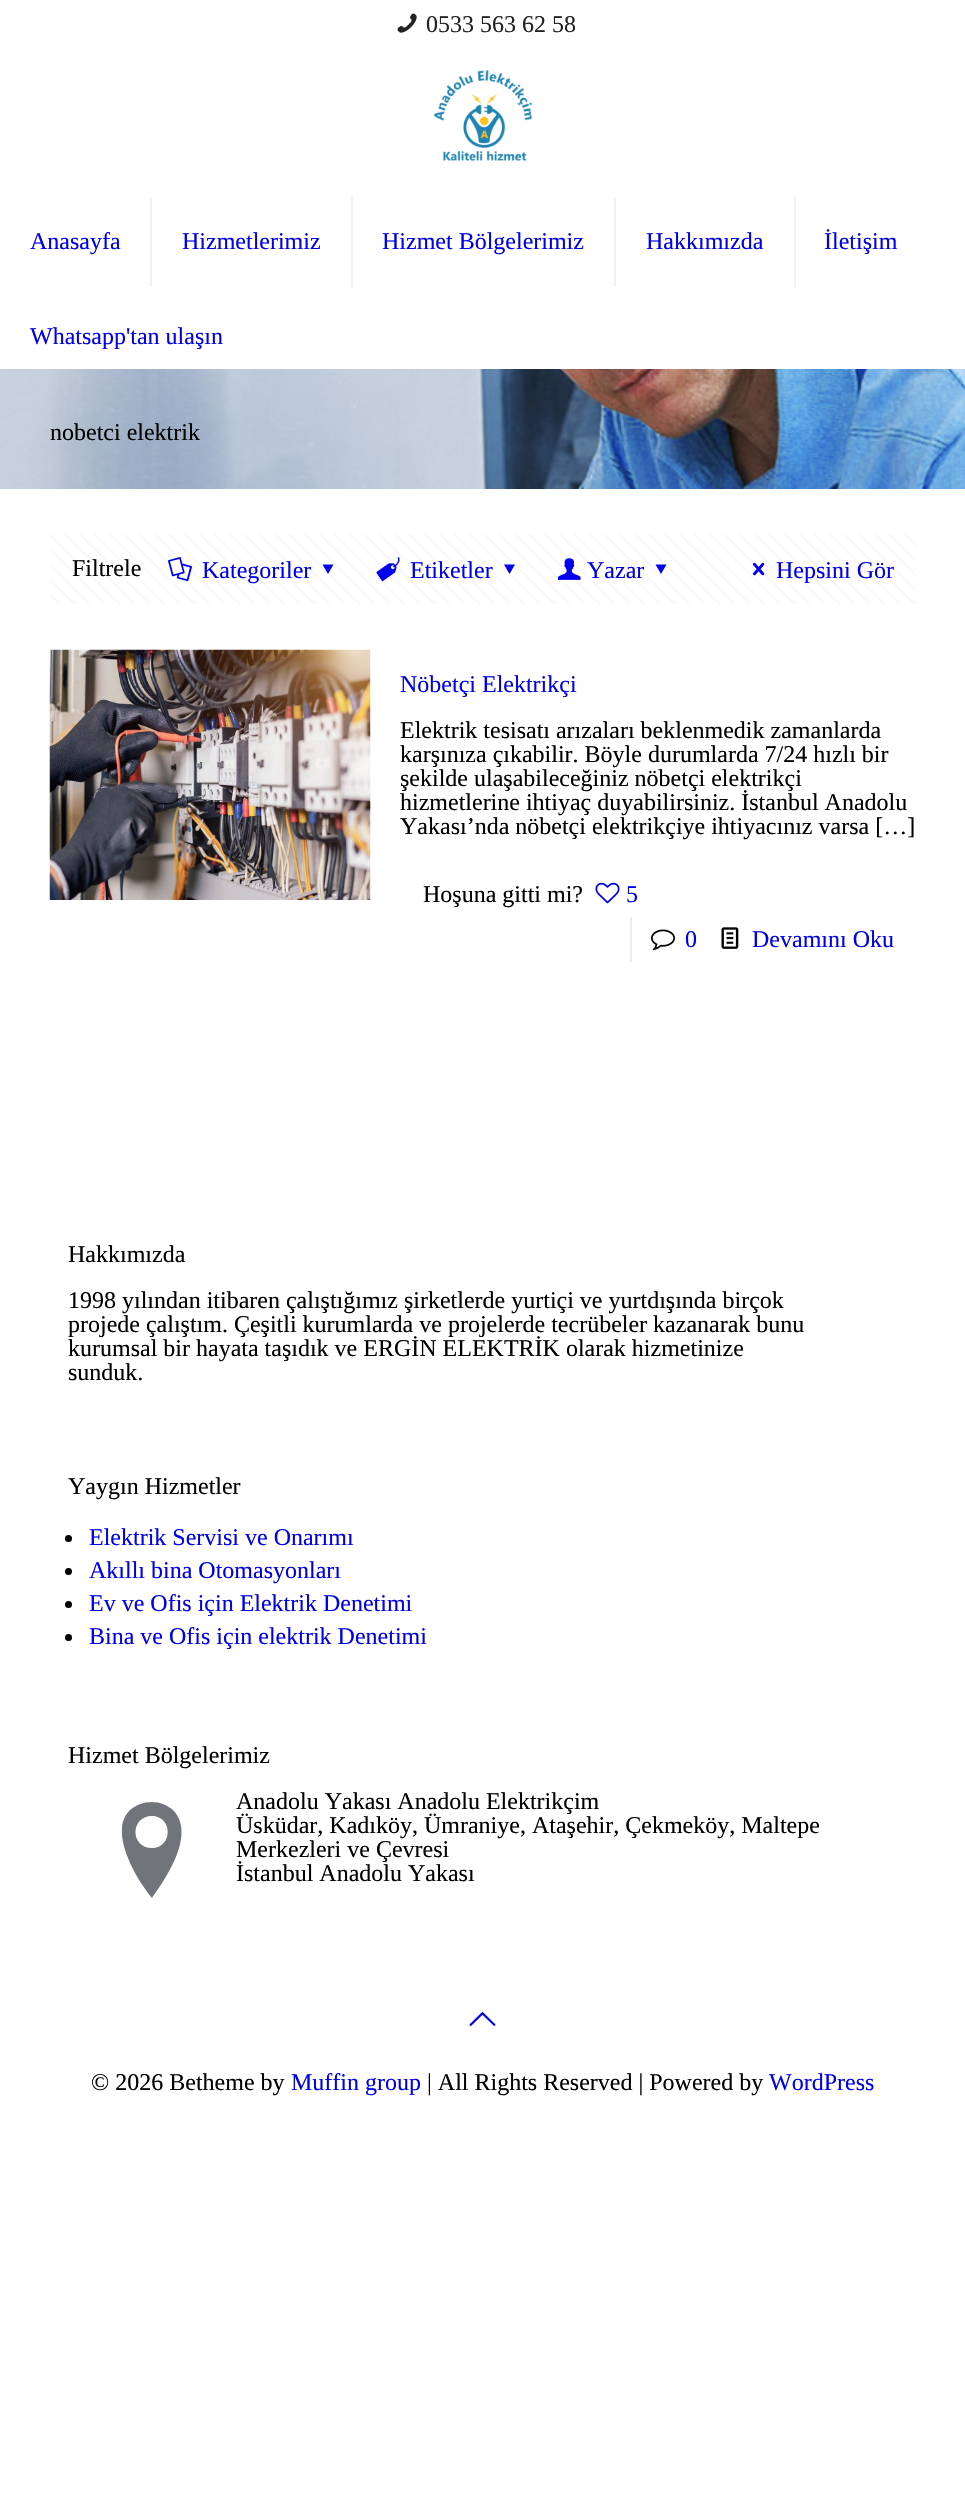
void draw(SkCanvas* c) {
SkPaint p;
p.setAntiAlias(true);
auto F=[&](const char* family, int weight, float size, bool italic = false){SkFontStyle style(weight, SkFontStyle::kNormal_Width,italic ? SkFontStyle::kItalic_Slant : SkFontStyle::kUpright_Slant);SkFont result(fontMgr->matchFamilyStyle(family, style), size);result.setSubpixel(true);return result;};
auto T=[&](const char* s, float x, float y, const SkFont& font){c->drawString(s, x, y, font, p);};
auto R=[&](float x, float y, float w, float h){c->drawRect(SkRect::MakeXYWH(x, y, w, h), p);};
auto I=[&](const char* path, float x, float y, float w, float h){auto image = SkImages::DeferredFromEncodedData(SkData::MakeFromFileName(path));c->drawImageRect(image, SkRect::MakeXYWH(x, y, w, h), SkSamplingOptions());};
auto P=[&](const char* data, bool evenOdd = false){SkPath result = *SkParsePath::FromSVGString(data);if (evenOdd) result.setFillType(SkPathFillType::kEvenOdd);return result;};
c->clear(0xffffffff);
I("1.png",0,369,965,120);
I("2.png",397,13,20,20);
auto f1 = F("Liberation Serif",400,24);
p.setColor(0xff222222);
T("0533 563 62 58",426,32,f1);
I("3.png",434,70,98,91);
p.setColor(0xfff2f2f2);
R(150,197,2,90);
p.setColor(0xff0000ee);
T("Anasayfa",30,249,f1);
p.setColor(0xfff2f2f2);
R(351,197,2,90);
p.setColor(0xff0000ee);
T("Hizmetlerimiz",182,249,f1);
p.setColor(0xfff2f2f2);
R(614,197,2,90);
p.setColor(0xff0000ee);
T("Hizmet Bölgelerimiz",382,249,f1);
p.setColor(0xfff2f2f2);
R(794,197,2,90);
p.setColor(0xff0000ee);
T("Hakkımızda",646,249,f1);
T("İletişim",824,249,f1);
T("Whatsapp'tan ulaşın",30,344,f1);
p.setColor(0xff000000);
T("nobetci elektrik",50,440,f1);
I("4.png",50,534,866,70);
T("Filtrele",72,576,f1);
I("5.png",168,557,24,24);
p.setColor(0xff0000ee);
T("Kategoriler",202,578,f1);
c->drawPath(P("M333.5 564.5l-5.5 9.5l-5.5-9.5z"),p);
I("6.png",376,557,24,25);
T("Etiketler",410,578,f1);
c->drawPath(P("M515 564.5l-5.5 9.5l-5.5-9.5z"),p);
I("7.png",558,558,23,22);
T("Yazar",587,578,f1);
c->drawPath(P("M666.5 564.5l-5.5 9.5l-5.5-9.5z"),p);
I("8.png",753,562,12,14);
T("Hepsini Gör",776,578,f1);
I("9.png",49,649,322,251);
T("Nöbetçi Elektrikçi",400,692,f1);
p.setColor(0xff000000);
T("Elektrik tesisatı arızaları beklenmedik zamanlarda",400,738,f1);
T("karşınıza çıkabilir. Böyle durumlarda 7/24 hızlı bir",400,762,f1);
T("şekilde ulaşabileceğiniz nöbetçi elektrikçi",400,786,f1);
T("hizmetlerine ihtiyaç duyabilirsiniz. İstanbul Anadolu",400,810,f1);
T("Yakası’nda nöbetçi elektrikçiye ihtiyacınız varsa […]",400,834,f1);
T("Hoşuna gitti mi?",423,902,f1);
I("10.png",595,882,25,22);
p.setColor(0xff0000ee);
T("5",626,902,f1);
p.setColor(0xffebebeb);
R(630,917,2,45);
I("11.png",651,929,24,22);
p.setColor(0xff0000ee);
T("0",685,947,f1);
I("12.png",721,927,18,22);
T("Devamını Oku",752,947,f1);
p.setColor(0xff000000);
T("Hakkımızda",68,1262,f1);
T("1998 yılından itibaren çalıştığımız şirketlerde yurtiçi ve yurtdışında birçok",68,1308,f1);
T("projede çalıştım. Çeşitli kurumlarda ve projelerde tecrübeler kazanarak bunu",68,1332,f1);
T("kurumsal bir hayata taşıdık ve ERGİN ELEKTRİK olarak hizmetinize",68,1356,f1);
T("sunduk.",68,1380,f1);
T("Yaygın Hizmetler",68,1494,f1);
c->drawCircle(68.5,1538.5,3.5,p);
p.setColor(0xff0000ee);
T("Elektrik Servisi ve Onarımı",89,1545,f1);
p.setColor(0xff000000);
c->drawCircle(68.5,1571.5,3.5,p);
p.setColor(0xff0000ee);
T("Akıllı bina Otomasyonları",89,1578,f1);
p.setColor(0xff000000);
c->drawCircle(68.5,1604.5,3.5,p);
p.setColor(0xff0000ee);
T("Ev ve Ofis için Elektrik Denetimi",89,1611,f1);
p.setColor(0xff000000);
c->drawCircle(68.5,1637.5,3.5,p);
p.setColor(0xff0000ee);
T("Bina ve Ofis için elektrik Denetimi",89,1644,f1);
p.setColor(0xff000000);
T("Hizmet Bölgelerimiz",68,1763,f1);
p.setColor(0xff71757b);
c->drawPath(P("M152 1802c8 0 15 3 21 8c23 24-6 67-21 88c-14-17-32-48-30-70c0-6 3-13 8-18c6-5 13-8 22-8zm0 46c21 0 21-32 0-32c-22 0-22 32 0 32z"),p);
p.setColor(0xff000000);
T("Anadolu Yakası Anadolu Elektrikçim",236,1809,f1);
T("Üsküdar, Kadıköy, Ümraniye, Ataşehir, Çekmeköy, Maltepe",236,1833,f1);
T("Merkezleri ve Çevresi",236,1857,f1);
T("İstanbul Anadolu Yakası",236,1881,f1);
I("13.png",469,2012,27,14);
T("© 2026 Betheme by",91,2090,f1);
p.setColor(0xff0000ee);
T("Muffin group",291,2090,f1);
p.setColor(0xff000000);
T("| All Rights Reserved | Powered by",427,2090,f1);
p.setColor(0xff0000ee);
T("WordPress",769,2090,f1);
}
